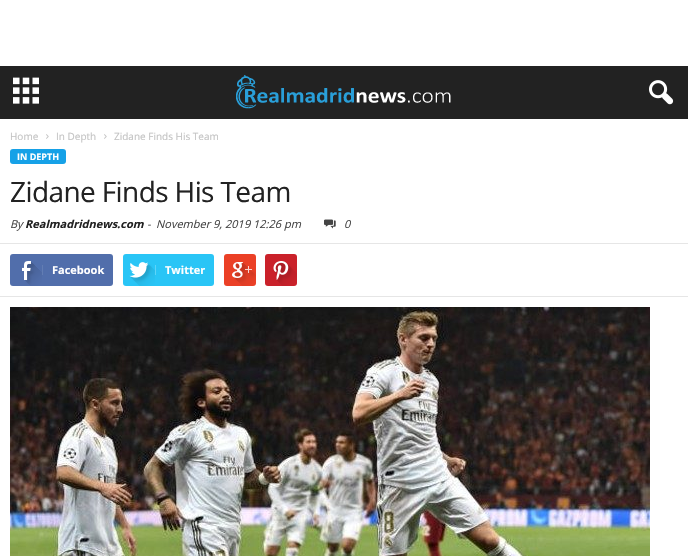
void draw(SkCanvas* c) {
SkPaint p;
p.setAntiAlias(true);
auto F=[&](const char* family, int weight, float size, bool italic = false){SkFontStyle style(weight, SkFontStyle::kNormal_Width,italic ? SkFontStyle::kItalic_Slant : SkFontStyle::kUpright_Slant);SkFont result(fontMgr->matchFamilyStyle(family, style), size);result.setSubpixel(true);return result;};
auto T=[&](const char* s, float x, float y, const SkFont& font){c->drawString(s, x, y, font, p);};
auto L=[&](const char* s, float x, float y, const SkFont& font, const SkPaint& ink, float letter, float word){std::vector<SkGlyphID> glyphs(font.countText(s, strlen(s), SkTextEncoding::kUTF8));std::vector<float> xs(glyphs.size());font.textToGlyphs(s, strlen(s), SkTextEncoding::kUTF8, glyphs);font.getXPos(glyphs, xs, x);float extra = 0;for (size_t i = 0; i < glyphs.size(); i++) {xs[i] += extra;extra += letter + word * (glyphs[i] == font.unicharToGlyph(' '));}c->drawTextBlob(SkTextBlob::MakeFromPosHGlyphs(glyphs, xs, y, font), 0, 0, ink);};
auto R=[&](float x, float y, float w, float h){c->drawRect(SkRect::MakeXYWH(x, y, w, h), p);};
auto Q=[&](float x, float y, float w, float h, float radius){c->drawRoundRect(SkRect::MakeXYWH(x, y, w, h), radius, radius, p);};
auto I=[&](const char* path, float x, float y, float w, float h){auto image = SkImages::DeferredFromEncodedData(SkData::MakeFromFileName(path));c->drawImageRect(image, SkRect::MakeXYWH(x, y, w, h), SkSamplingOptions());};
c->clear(0xffffffff);
p.setColor(0xff222222);
R(0,66,688,53);
I("1.png",13,77,26,27);
I("2.png",236,75,215,34);
I("3.png",649,80,25,25);
auto f1 = F("Open Sans",400,10);
p.setColor(0xffc3c3c3);
T("Home",10,140,f1);
I("4.png",46,134,3,5);
T("In Depth",56,140,f1);
I("4.png",104,134,3,5);
T("Zidane Finds His Team",114,140,f1);
p.setColor(0xff16a1e7);
Q(10,149,56,15,3);
auto f2 = F("Open Sans",700,9);
p.setColor(0xffffffff);
T("IN DEPTH",17,160,f2);
auto f3 = F("Open Sans",400,28);
p.setColor(0xff222222);
L("Zidane Finds His Team",10,202,f3,p,-.6,0);
auto f4 = F("Open Sans",400,11,true);
p.setColor(0xff444444);
T("By",10,228,f4);
auto f5 = F("Open Sans",700,11,true);
p.setColor(0xff222222);
T("Realmadridnews.com",25,228,f5);
p.setColor(0xff444444);
T("-",147,228,f4);
T("November 9, 2019 12:26 pm",156,228,f4);
I("5.png",324,219,12,10);
T("0",344,228,f4);
p.setColor(0xffe6e6e6);
R(0,243,688,1);
p.setColor(0xff516eab);
Q(10,254,103,32,3);
I("6.png",22,261,20,25);
p.setColor(0xff627db3);
R(42,265,1,10);
auto f6 = F("Open Sans",700,11);
p.setColor(0xffffffff);
T("Facebook",52,274,f6);
p.setColor(0xff29c5f6);
Q(123,254,91,32,3);
I("7.png",129,262,26,24);
p.setColor(0xff5fd4f8);
R(155,265,1,10);
p.setColor(0xffffffff);
T("Twitter",165,274,f6);
p.setColor(0xffeb4026);
Q(224,254,32,32,3);
I("8.png",232,262,24,24);
p.setColor(0xffca212a);
Q(265,254,32,32,3);
I("9.png",273,261,24,25);
p.setColor(0xffe6e6e6);
R(0,296,688,1);
I("10.png",10,307,640,249);
}
